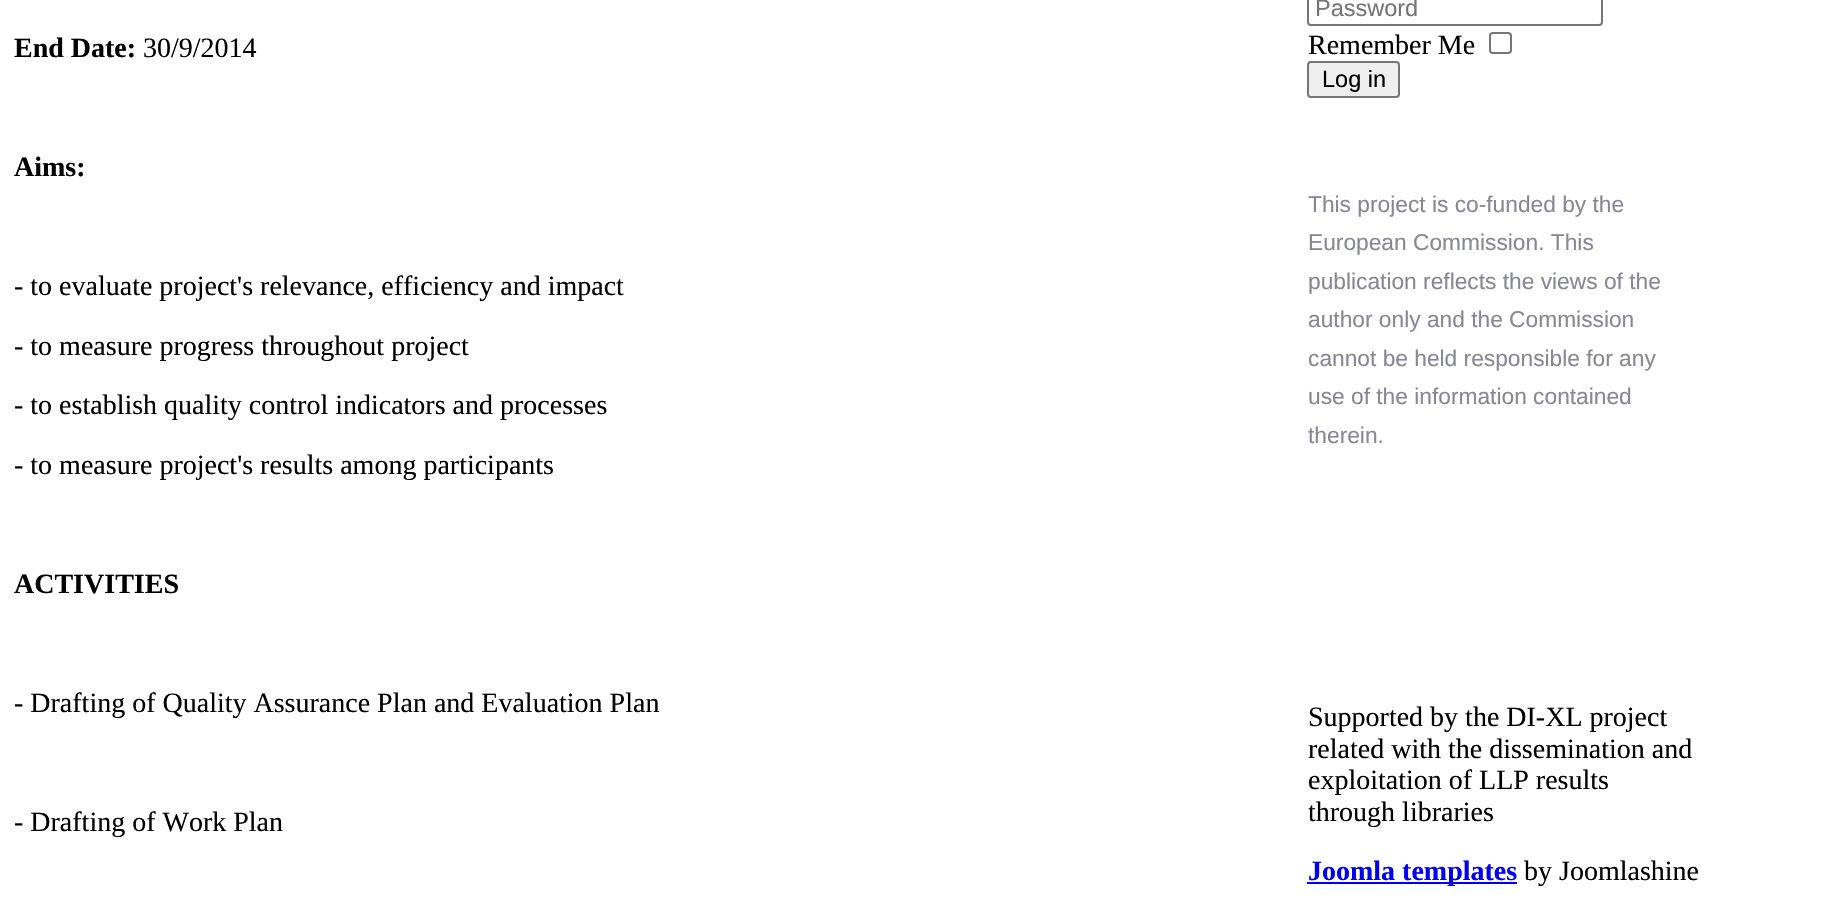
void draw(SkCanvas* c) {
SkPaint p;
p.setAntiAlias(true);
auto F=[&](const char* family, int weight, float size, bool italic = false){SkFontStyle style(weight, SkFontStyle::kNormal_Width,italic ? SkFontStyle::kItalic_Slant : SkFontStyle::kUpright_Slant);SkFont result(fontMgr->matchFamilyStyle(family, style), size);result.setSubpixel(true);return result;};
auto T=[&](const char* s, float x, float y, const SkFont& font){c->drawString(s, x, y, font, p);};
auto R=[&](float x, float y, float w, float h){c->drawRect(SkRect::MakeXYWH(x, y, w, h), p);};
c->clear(0xffffffff);
auto f1 = F("Liberation Serif",700,28);
p.setColor(0xff000000);
T("End Date:",14,57,f1);
auto f2 = F("Liberation Serif",400,28);
T("30/9/2014",143,57,f2);
T("Aims:",14,176,f1);
T("- to evaluate project's relevance, efficiency and impact",14,295,f2);
T("- to measure progress throughout project",14,355,f2);
T("- to establish quality control indicators and processes",14,414,f2);
T("- to measure project's results among participants",14,474,f2);
T("ACTIVITIES",14,593,f1);
T("- Drafting of Quality Assurance Plan and Evaluation Plan",14,712,f2);
T("- Drafting of Work Plan",14,831,f2);
p.setStroke(true);
p.setStrokeWidth(2);
p.setColor(0xff767676);
c->drawRoundRect(SkRect::MakeXYWH(1308,-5,294,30),3,3,p);
auto f3 = F("Liberation Sans",400,23.5);
p.setStroke(false);
p.setColor(0xff757575);
T("Password",1315,16,f3);
p.setColor(0xff000000);
T("Remember Me",1308,54,f2);
p.setStroke(true);
p.setColor(0xff767676);
c->drawRoundRect(SkRect::MakeXYWH(1490,33,21,20),3,3,p);
p.setStroke(false);
p.setColor(0xffefefef);
c->drawRoundRect(SkRect::MakeXYWH(1308,62,91,35),3,3,p);
p.setStroke(true);
p.setColor(0xff767676);
c->drawRoundRect(SkRect::MakeXYWH(1308,62,91,35),3,3,p);
p.setStroke(false);
p.setColor(0xff000000);
T("Log in",1322,87,f3);
auto f4 = F("Liberation Sans",400,22.75);
p.setColor(0xff878894);
T("This project is co-funded by the",1308,212,f4);
T("European Commission. This",1308,250,f4);
T("publication reflects the views of the",1308,289,f4);
T("author only and the Commission",1308,327,f4);
T("cannot be held responsible for any",1308,366,f4);
T("use of the information contained",1308,404,f4);
T("therein.",1308,443,f4);
p.setColor(0xff000000);
T("Supported by the DI-XL project",1308,726,f2);
T("related with the dissemination and",1308,758,f2);
T("exploitation of LLP results",1308,789,f2);
T("through libraries",1308,821,f2);
p.setColor(0xff0000ee);
R(1307,882,210,2);
T("Joomla templates",1308,880,f1);
p.setColor(0xff000000);
T("by Joomlashine",1524,880,f2);
}
